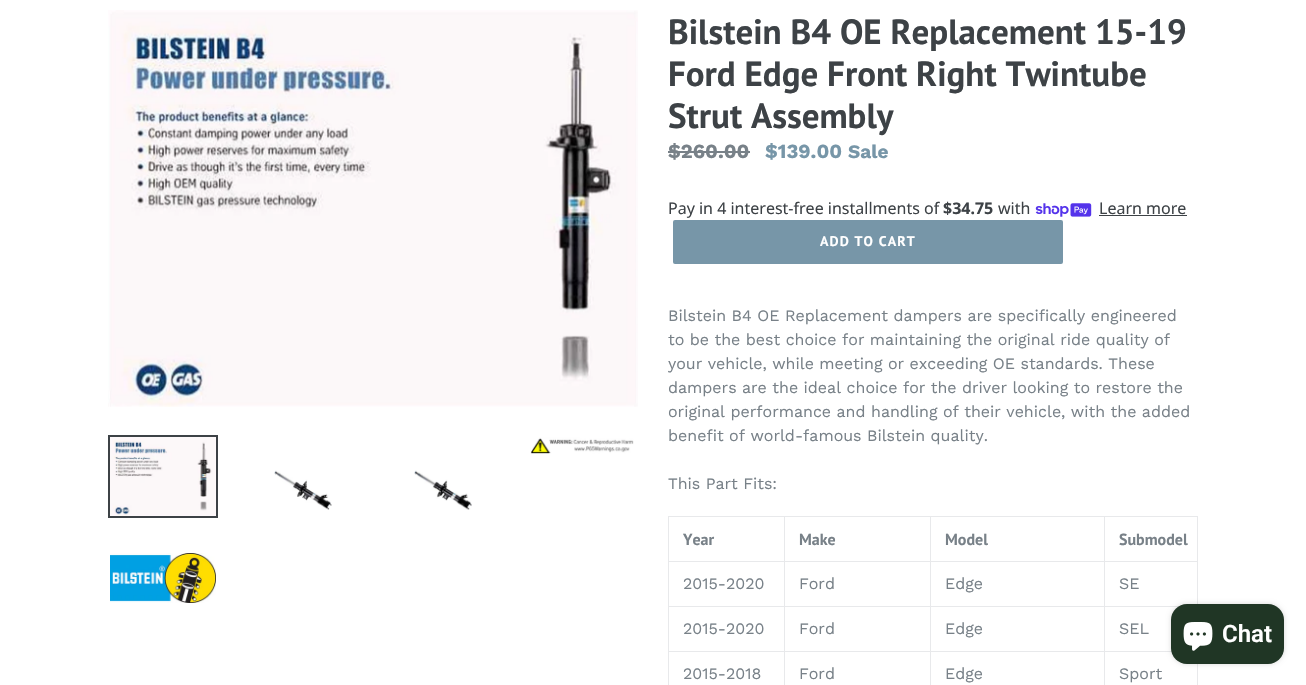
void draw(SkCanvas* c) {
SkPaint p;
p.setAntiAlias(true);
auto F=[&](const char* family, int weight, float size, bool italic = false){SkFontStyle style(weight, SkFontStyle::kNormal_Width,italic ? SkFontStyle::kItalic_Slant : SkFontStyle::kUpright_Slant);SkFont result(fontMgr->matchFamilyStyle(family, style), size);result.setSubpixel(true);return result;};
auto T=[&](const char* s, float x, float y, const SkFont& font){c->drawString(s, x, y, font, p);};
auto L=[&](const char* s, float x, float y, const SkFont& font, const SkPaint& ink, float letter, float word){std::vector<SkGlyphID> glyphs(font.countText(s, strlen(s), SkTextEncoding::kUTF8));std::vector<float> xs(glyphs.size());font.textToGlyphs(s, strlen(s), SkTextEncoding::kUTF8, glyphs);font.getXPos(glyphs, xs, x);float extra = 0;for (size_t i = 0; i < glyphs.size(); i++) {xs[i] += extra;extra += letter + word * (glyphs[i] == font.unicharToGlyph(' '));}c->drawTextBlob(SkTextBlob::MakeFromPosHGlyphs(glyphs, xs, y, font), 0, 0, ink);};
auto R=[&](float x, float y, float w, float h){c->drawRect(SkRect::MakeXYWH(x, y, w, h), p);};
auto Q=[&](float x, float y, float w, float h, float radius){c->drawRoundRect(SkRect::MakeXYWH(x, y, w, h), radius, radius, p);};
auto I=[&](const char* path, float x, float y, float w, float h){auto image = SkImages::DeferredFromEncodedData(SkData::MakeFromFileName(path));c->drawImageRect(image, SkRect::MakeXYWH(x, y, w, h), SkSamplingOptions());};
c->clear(0xffffffff);
I("1.png",108,10,530,397);
p.setStroke(true);
p.setStrokeWidth(2);
p.setColor(0xff3d4246);
c->drawRect(SkRect::MakeXYWH(109,436,108,81),p);
I("2.png",110,437,106,79);
I("3.png",530,437,104,17);
I("4.png",274,470,58,40);
I("5.png",414,470,58,40);
I("6.png",110,553,106,50);
auto f1 = F("PT Sans",700,35);
p.setStroke(false);
T("Bilstein B4 OE Replacement 15-19",668,44,f1);
T("Ford Edge Front Right Twintube",668,86,f1);
T("Strut Assembly",668,128,f1);
auto f2 = F("Work Sans",700,20);
p.setColor(0xff788188);
T("$260.00",668,158,f2);
R(668,151,82,2);
p.setColor(0xff7796a8);
T("$139.00",765,158,f2);
auto f3 = F("Work Sans",700,19);
T("Sale",848,158,f3);
auto f4 = F("Noto Sans",400,16);
p.setColor(0xff3d4246);
T("Pay in 4 interest-free installments of",668,214,f4);
auto f5 = F("Noto Sans",700,16);
T("$34.75",943,214,f5);
T("with",998,214,f4);
I("7.png",1035,203,57,14);
T("Learn more",1099,214,f4);
R(1099,215,88,1);
p.setColor(0xff7796a8);
Q(673,220,390,44,2);
auto f6 = F("PT Sans",700,14);
p.setColor(0xffffffff);
L("ADD TO CART",820,246,f6,p,1.1,0);
auto f7 = F("Work Sans",400,16);
p.setColor(0xff788188);
T("Bilstein B4 OE Replacement dampers are specifically engineered",668,321,f7);
T("to be the best choice for maintaining the original ride quality of",668,345,f7);
T("your vehicle, while meeting or exceeding OE standards. These",668,369,f7);
T("dampers are the ideal choice for the driver looking to restore the",668,393,f7);
T("original performance and handling of their vehicle, with the added",668,417,f7);
T("benefit of world-famous Bilstein quality.",668,441,f7);
T("This Part Fits:",668,489,f7);
p.setColor(0xffe8e9eb);
R(1104,516,94,1);
R(1104,561,94,1);
R(1104,606,76,1);
R(1104,651,68,1);
R(1104,651,1,34);
R(930,651,175,1);
R(1104,606,1,46);
R(930,606,175,1);
R(1104,561,1,46);
R(930,561,175,1);
R(1104,516,1,46);
R(930,516,175,1);
R(930,651,1,34);
R(784,651,147,1);
R(930,606,1,46);
R(784,606,147,1);
R(930,561,1,46);
R(784,561,147,1);
R(930,516,1,46);
R(784,516,147,1);
R(784,651,1,34);
R(668,651,117,1);
R(784,606,1,46);
R(668,606,117,1);
R(784,561,1,46);
R(668,561,117,1);
R(784,516,1,46);
R(668,516,117,1);
R(668,651,1,34);
R(668,606,1,46);
R(668,561,1,46);
R(668,516,1,46);
auto f8 = F("PT Sans",700,16);
p.setColor(0xff788188);
T("Year",683,545,f8);
T("Make",799,545,f8);
T("Model",945,545,f8);
p.setColor(0xffe8e9eb);
R(1197,561,1,46);
R(1197,516,1,46);
p.setColor(0xff788188);
T("Submodel",1119,545,f8);
T("2015-2020",683,589,f7);
T("Ford",799,589,f7);
T("Edge",945,589,f7);
T("SE",1119,589,f7);
T("2015-2020",683,634,f7);
T("Ford",799,634,f7);
T("Edge",945,634,f7);
T("SEL",1119,634,f7);
T("2015-2018",683,679,f7);
T("Ford",799,679,f7);
T("Edge",945,679,f7);
p.setColor(0xffe8e9eb);
R(1197,664,1,21);
p.setColor(0xff788188);
T("Sport",1119,679,f7);
p.setColor(0x26000000);
p.setMaskFilter(SkMaskFilter::MakeBlur(kNormal_SkBlurStyle, 2.5));
c->drawRoundRect(SkRect::MakeXYWH(1171,604,113,60),16,16,p);
p.setMaskFilter(nullptr);
p.setColor(0xff203625);
Q(1171,604,113,60,16);
I("8.png",1183,622,30,29);
auto f9 = F("Roboto",600,24);
p.setColor(0xffffffff);
T("Chat",1222,642,f9);
}
